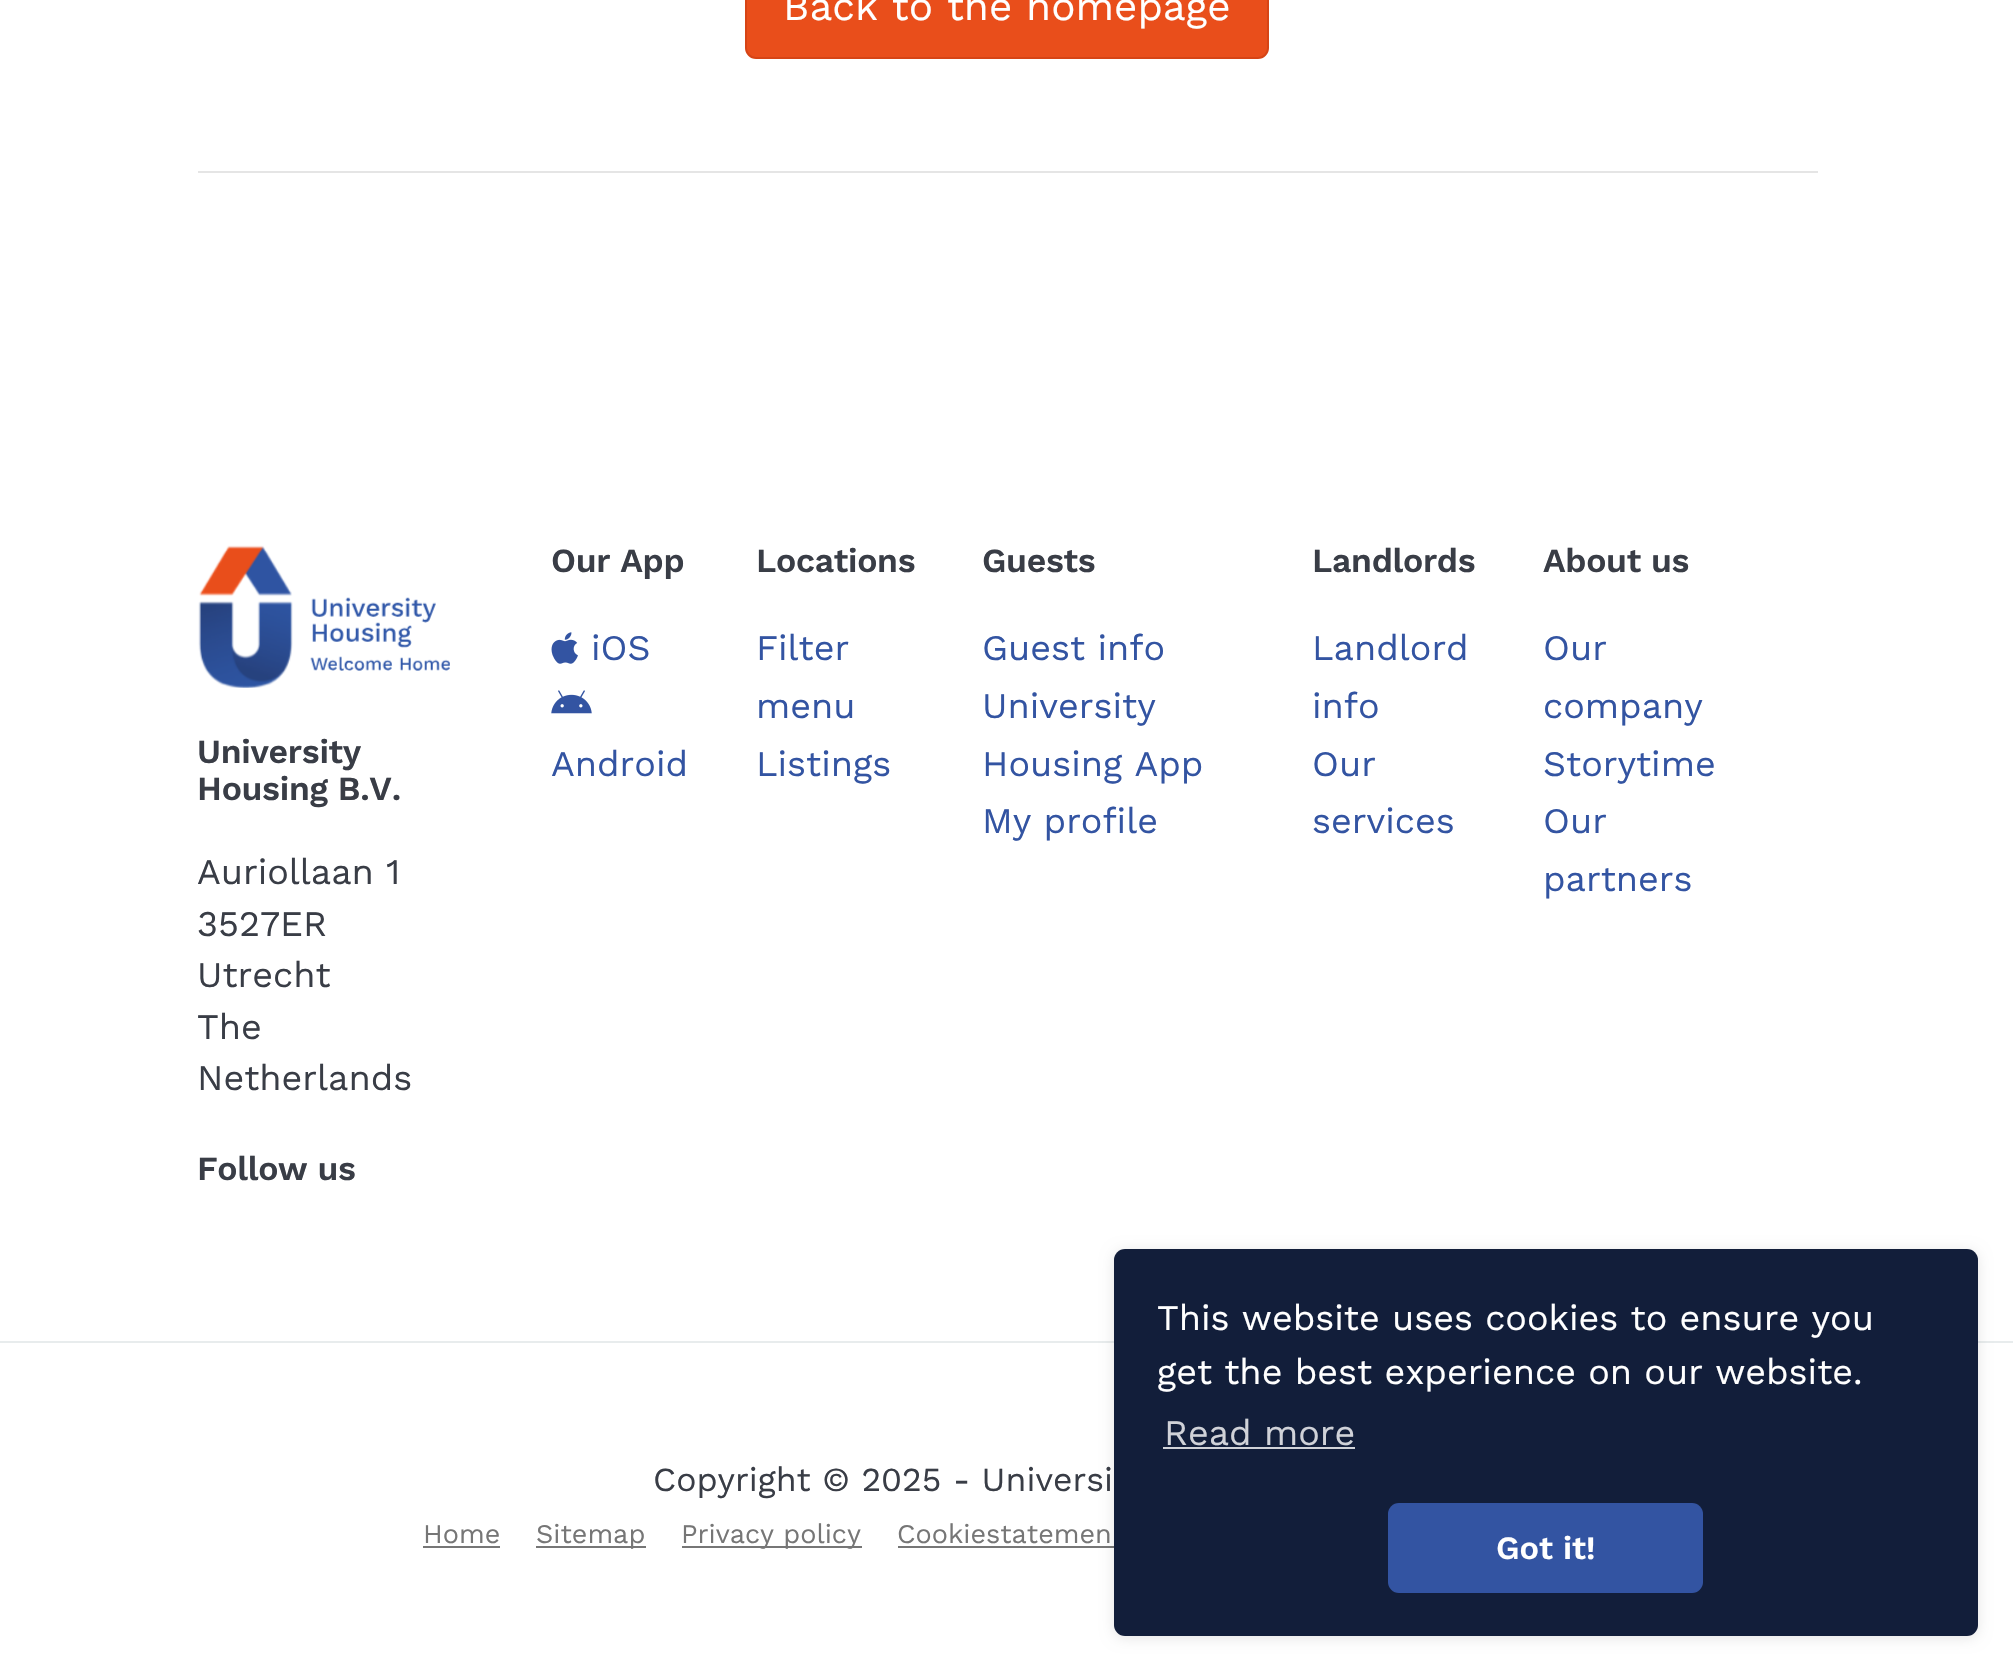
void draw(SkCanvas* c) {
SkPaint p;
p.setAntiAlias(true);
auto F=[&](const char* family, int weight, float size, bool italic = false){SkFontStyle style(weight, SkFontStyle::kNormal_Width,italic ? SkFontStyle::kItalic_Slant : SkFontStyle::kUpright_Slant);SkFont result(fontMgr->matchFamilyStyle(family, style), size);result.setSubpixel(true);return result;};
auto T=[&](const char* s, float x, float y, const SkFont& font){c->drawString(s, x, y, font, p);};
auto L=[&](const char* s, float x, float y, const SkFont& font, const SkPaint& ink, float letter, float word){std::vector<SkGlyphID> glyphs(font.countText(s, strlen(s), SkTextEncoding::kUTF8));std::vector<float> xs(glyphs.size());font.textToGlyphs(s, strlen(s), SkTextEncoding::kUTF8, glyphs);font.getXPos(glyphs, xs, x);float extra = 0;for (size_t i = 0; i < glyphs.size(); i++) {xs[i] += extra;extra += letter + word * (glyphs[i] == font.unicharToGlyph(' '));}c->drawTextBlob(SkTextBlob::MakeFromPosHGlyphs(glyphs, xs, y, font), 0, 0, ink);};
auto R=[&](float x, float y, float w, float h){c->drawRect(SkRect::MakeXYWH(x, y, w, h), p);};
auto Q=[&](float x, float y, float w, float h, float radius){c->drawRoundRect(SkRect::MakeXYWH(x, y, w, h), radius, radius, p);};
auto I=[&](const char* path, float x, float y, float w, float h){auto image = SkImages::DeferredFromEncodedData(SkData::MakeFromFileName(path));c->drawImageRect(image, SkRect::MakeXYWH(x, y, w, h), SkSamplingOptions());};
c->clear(0xffffffff);
p.setColor(0xffe5e5e5);
R(198,171,1620,2);
p.setColor(0xffe94e1b);
c->drawRoundRect(SkRect::MakeXYWH(746,-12,522,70),10,10,p);
p.setStroke(true);
p.setStrokeWidth(2);
p.setColor(0xffd64415);
c->drawRoundRect(SkRect::MakeXYWH(746,-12,522,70),10,10,p);
auto f1 = F("Work Sans",400,40.5);
p.setStroke(false);
p.setColor(0xffffffff);
T("Back to the homepage",783,20,f1);
I("1.png",198,545,252,143);
auto f2 = F("Work Sans",600,33.75);
p.setColor(0xff393d46);
L("University",197,763,f2,p,-.3,0);
L("Housing B.V.",197,800,f2,p,-.3,0);
auto f3 = F("Work Sans",400,36);
T("Auriollaan 1",197,884,f3);
T("3527ER",197,936,f3);
T("Utrecht",197,987,f3);
T("The",197,1039,f3);
T("Netherlands",197,1090,f3);
L("Follow us",197,1180,f2,p,-.3,0);
L("Our App",551,572,f2,p,-.3,0);
I("2.png",551,632,27,32);
p.setColor(0xff3354a2);
T("iOS",591,660,f3);
I("3.png",551,690,41,24);
T("Android",551,776,f3);
p.setColor(0xff393d46);
L("Locations",756,572,f2,p,-.3,0);
p.setColor(0xff3354a2);
T("Filter",756,660,f3);
T("menu",756,718,f3);
T("Listings",756,776,f3);
p.setColor(0xff393d46);
L("Guests",982,572,f2,p,-.3,0);
p.setColor(0xff3354a2);
T("Guest info",982,660,f3);
T("University",982,718,f3);
T("Housing App",982,776,f3);
T("My profile",982,833,f3);
p.setColor(0xff393d46);
L("Landlords",1312,572,f2,p,-.3,0);
p.setColor(0xff3354a2);
T("Landlord",1312,660,f3);
T("info",1312,718,f3);
T("Our",1312,776,f3);
T("services",1312,833,f3);
p.setColor(0xff393d46);
L("About us",1543,572,f2,p,-.3,0);
p.setColor(0xff3354a2);
T("Our",1543,660,f3);
T("company",1543,718,f3);
T("Storytime",1543,776,f3);
T("Our",1543,833,f3);
T("partners",1543,891,f3);
p.setColor(0xffe8eced);
R(0,1341,2013,2);
auto f4 = F("Work Sans",400,33.75);
p.setColor(0xff393d46);
T("Copyright © 2025 - Universi",653,1491,f4);
auto f5 = F("Work Sans",400,27);
p.setColor(0xff767676);
T("Home",423,1543,f5);
R(423,1546,77,2);
R(536,1546,110,2);
T("Sitemap",536,1543,f5);
R(682,1546,180,2);
T("Privacy policy",681,1543,f5);
T("Cookiestatemen",897,1543,f5);
R(898,1546,216,2);
p.setColor(0x1a000000);
p.setMaskFilter(SkMaskFilter::MakeBlur(kNormal_SkBlurStyle, 7));
c->drawRoundRect(SkRect::MakeXYWH(1114,1251,864,387),11,11,p);
p.setMaskFilter(nullptr);
p.setColor(0xff121e3a);
Q(1114,1249,864,387,11);
p.setColor(0xffffffff);
T("This website uses cookies to ensure you",1157,1330,f3);
T("get the best experience on our website.",1157,1384,f3);
p.setColor(0xffd0d2d8);
T("Read more",1164,1445,f3);
R(1163,1447,192,2);
p.setColor(0xff3354a2);
Q(1388,1503,315,90,11);
auto f6 = F("Work Sans",600,32.5);
p.setColor(0xffffffff);
T("Got it!",1496,1559,f6);
}
